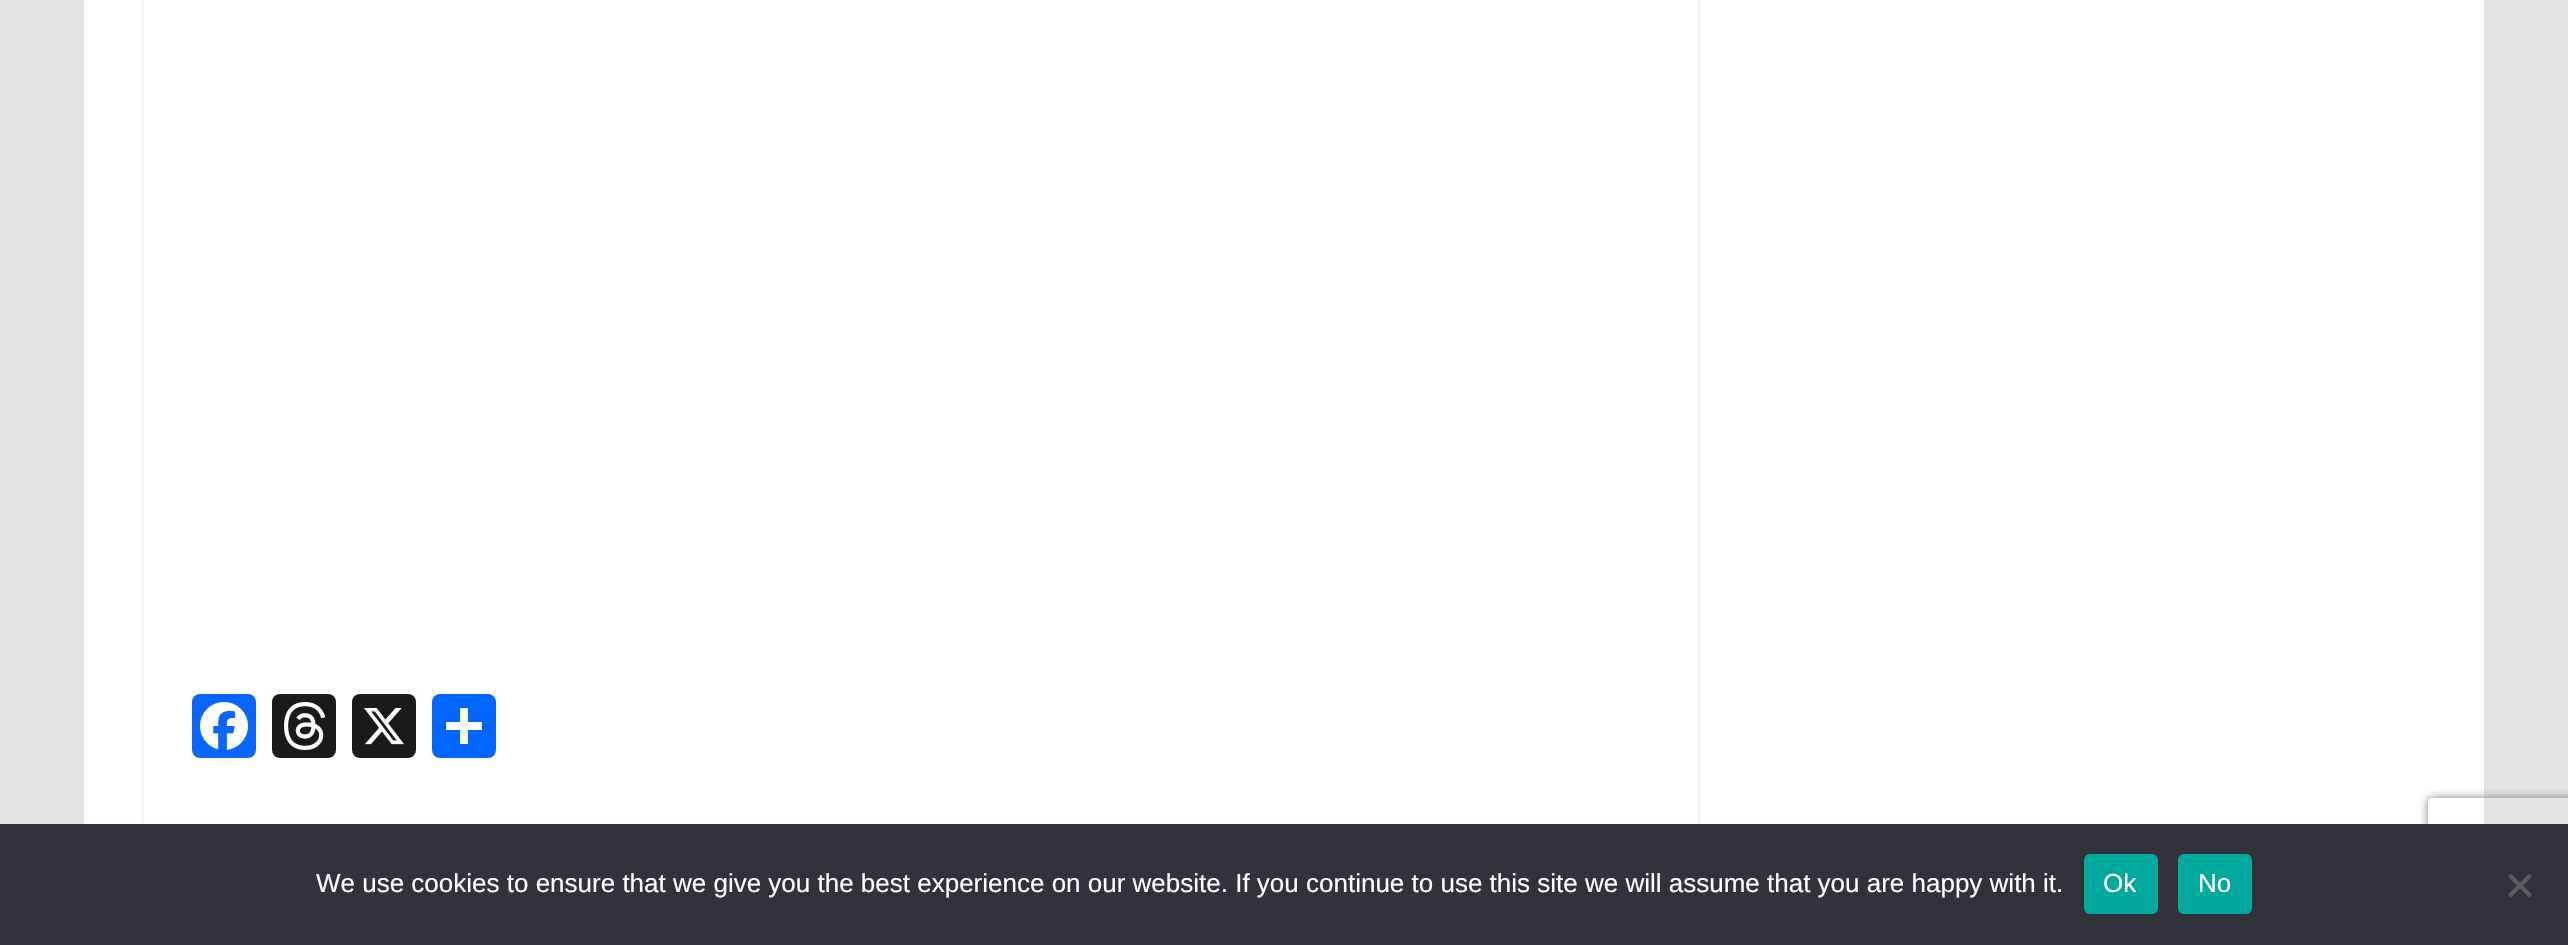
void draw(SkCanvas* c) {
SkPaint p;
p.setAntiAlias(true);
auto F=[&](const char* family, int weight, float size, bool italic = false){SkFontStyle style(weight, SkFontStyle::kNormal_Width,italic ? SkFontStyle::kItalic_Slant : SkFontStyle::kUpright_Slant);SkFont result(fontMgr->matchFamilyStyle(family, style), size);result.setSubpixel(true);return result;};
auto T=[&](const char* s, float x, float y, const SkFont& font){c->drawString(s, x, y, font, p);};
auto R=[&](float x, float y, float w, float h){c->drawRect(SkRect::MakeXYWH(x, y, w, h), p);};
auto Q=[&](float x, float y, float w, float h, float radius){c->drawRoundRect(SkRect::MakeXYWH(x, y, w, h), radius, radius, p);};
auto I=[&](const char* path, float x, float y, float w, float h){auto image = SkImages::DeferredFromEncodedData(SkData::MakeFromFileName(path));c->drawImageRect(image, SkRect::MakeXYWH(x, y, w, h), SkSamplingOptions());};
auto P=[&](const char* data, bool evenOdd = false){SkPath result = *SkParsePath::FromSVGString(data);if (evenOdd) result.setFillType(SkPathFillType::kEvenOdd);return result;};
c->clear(0xffe4e4e7);
p.setColor(0xffffffff);
R(84,0,2400,824);
c->save();
c->clipPath(P("M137 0h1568v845h-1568zm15-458h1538c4.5 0 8 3.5 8 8v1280c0 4.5-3.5 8-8 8h-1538c-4.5 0-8-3.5-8-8v-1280c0-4.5 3.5-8 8-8z",true),true);
p.setColor(0xffe4e4e7);
p.setMaskFilter(SkMaskFilter::MakeBlur(kNormal_SkBlurStyle, 2));
c->drawRoundRect(SkRect::MakeXYWH(144,-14,1554,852),8,8,p);
p.setMaskFilter(nullptr);
c->restore();
p.setColor(0xff0866ff);
Q(192,694,64,64,8);
I("1.png",200,702,48,48);
p.setColor(0xff1a1a1a);
Q(272,694,64,64,8);
I("2.png",284,702,42,48);
Q(352,694,64,64,8);
I("3.png",364,708,40,37);
p.setColor(0xff0166ff);
Q(432,694,64,64,8);
p.setColor(0xffffffff);
R(460,708,8,36);
R(446,722,36,8);
c->save();
c->clipPath(P("M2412 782h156v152h-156zm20 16h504c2 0 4 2 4 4v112c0 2-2 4-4 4h-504c-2 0-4-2-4-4v-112c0-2 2-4 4-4z",true),true);
p.setColor(0xff808080);
p.setMaskFilter(SkMaskFilter::MakeBlur(kNormal_SkBlurStyle, 5));
c->drawRoundRect(SkRect::MakeXYWH(2428,798,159,120),4,4,p);
p.setMaskFilter(nullptr);
c->restore();
p.setColor(0xff32323a);
R(0,824,2568,121);
auto f1 = F("Liberation Sans",400,26);
p.setColor(0xffffffff);
T("We use cookies to ensure that we give you the best experience on our website. If you continue to use this site we will assume that you are happy with it.",316,892,f1);
p.setColor(0xff00a99d);
Q(2084,854,74,60,6);
p.setColor(0xffffffff);
T("Ok",2103,892,f1);
p.setColor(0xff00a99d);
Q(2178,854,74,60,6);
p.setColor(0xffffffff);
T("No",2198,892,f1);
p.setColor(0xff59595d);
c->drawPath(P("M2529 873.5l3 3l-21 21l-3-3z"),p);
c->drawPath(P("M2508 876.5l3-3l21 21l-3 3z"),p);
}
